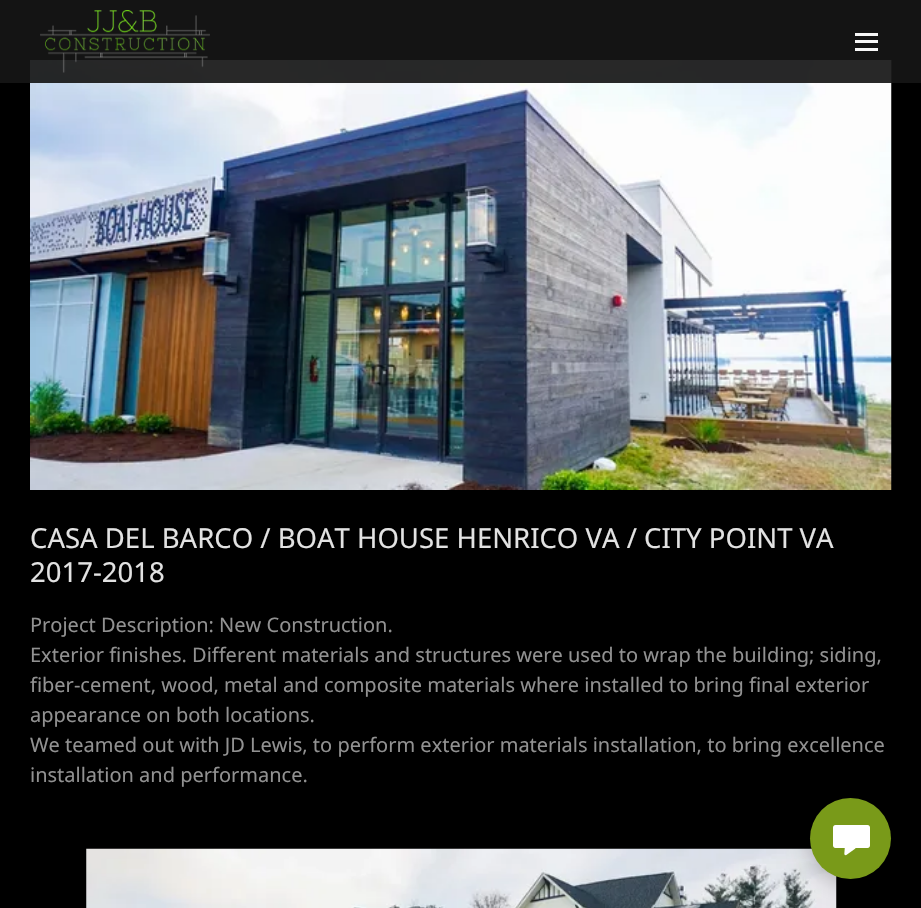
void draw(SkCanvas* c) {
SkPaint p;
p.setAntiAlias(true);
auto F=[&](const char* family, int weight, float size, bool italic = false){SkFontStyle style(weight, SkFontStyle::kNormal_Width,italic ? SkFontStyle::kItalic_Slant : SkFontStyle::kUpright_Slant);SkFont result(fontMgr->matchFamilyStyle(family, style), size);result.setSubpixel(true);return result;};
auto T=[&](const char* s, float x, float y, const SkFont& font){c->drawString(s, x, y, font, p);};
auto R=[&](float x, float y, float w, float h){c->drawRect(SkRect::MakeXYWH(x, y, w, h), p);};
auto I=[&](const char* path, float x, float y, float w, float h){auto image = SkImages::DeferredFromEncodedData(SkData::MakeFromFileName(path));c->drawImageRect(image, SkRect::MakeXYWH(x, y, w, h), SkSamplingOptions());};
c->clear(0xff000000);
I("2.png",30,60,862,430);
p.setColor(0xe6161616);
R(0,0,921,83);
p.setColor(0x40161616);
R(30,60,861,23);
I("1.png",40,10,170,63);
p.setColor(0xfff7f7f7);
R(855,33,23,3);
R(855,40,23,3);
R(855,48,23,3);
auto f1 = F("Noto Sans",400,27.5);
p.setColor(0xffe2e2e2);
T("CASA DEL BARCO / BOAT HOUSE HENRICO VA / CITY POINT VA",30,548,f1);
T("2017-2018",30,582,f1);
auto f2 = F("Noto Sans",400,20);
p.setColor(0xff919191);
T("Project Description: New Construction.",30,632,f2);
T("Exterior finishes. Different materials and structures were used to wrap the building; siding,",30,662,f2);
T("fiber-cement, wood, metal and composite materials where installed to bring final exterior",30,692,f2);
T("appearance on both locations.",30,722,f2);
T("We teamed out with JD Lewis, to perform exterior materials installation, to bring excellence",30,752,f2);
T("installation and performance.",30,782,f2);
I("3.png",86,848,751,60);
p.setColor(0x40000000);
p.setMaskFilter(SkMaskFilter::MakeBlur(kNormal_SkBlurStyle, 11));
c->drawRoundRect(SkRect::MakeXYWH(810,801,81,82),40.5,40.5,p);
p.setMaskFilter(nullptr);
p.setColor(0xff799a19);
c->drawCircle(850.5,838.5,40.5,p);
I("4.png",833,825,37,31);
}
